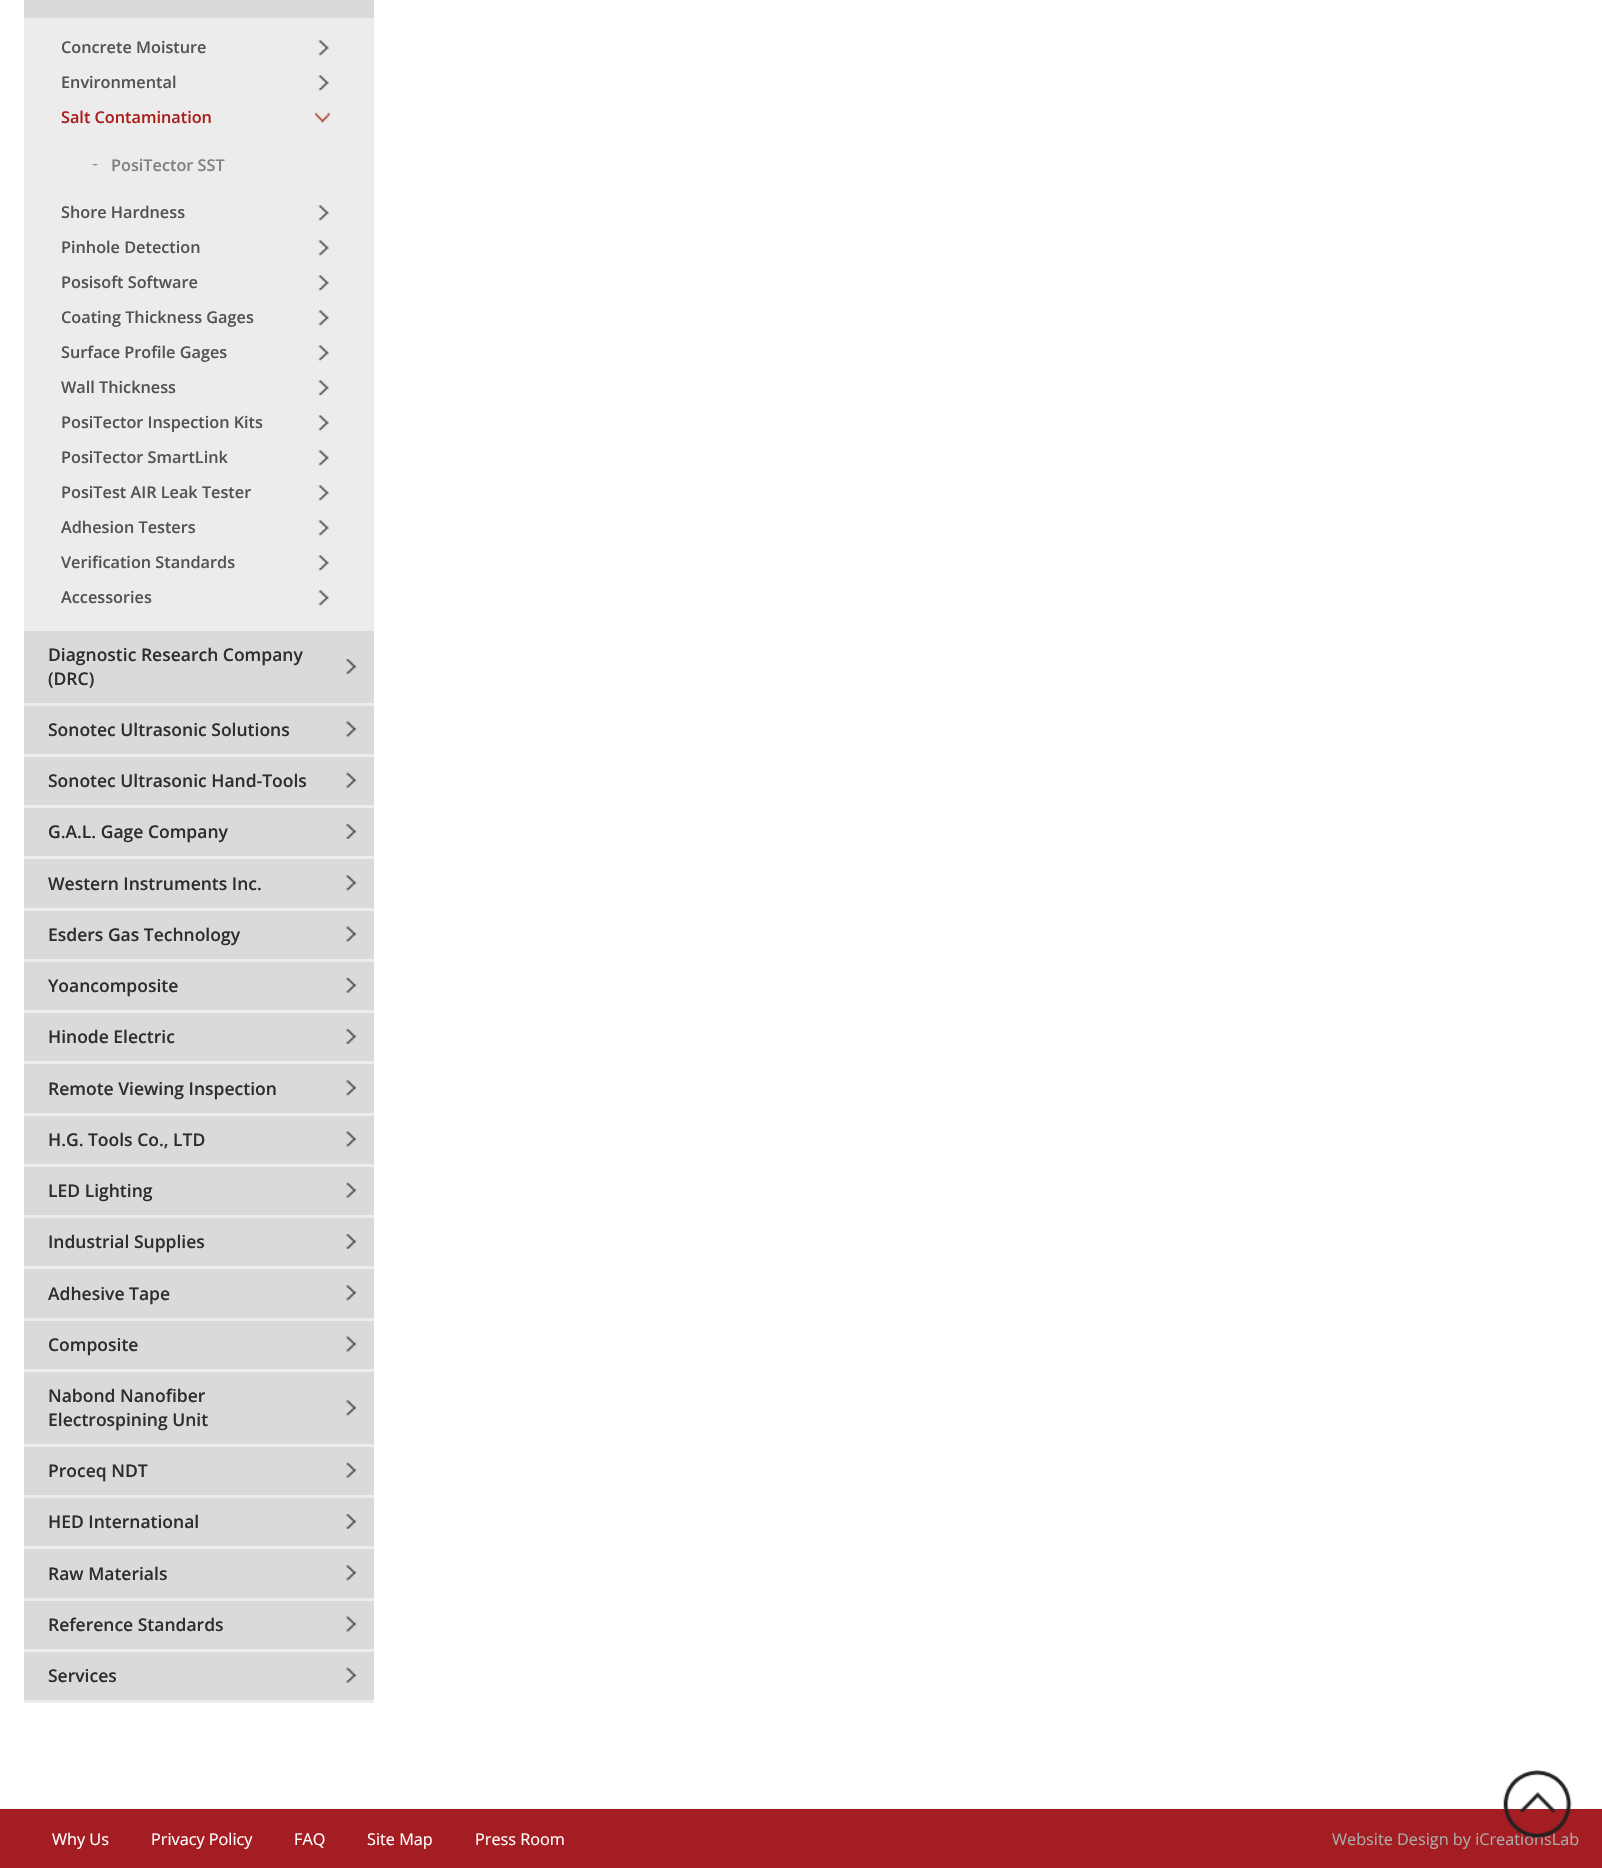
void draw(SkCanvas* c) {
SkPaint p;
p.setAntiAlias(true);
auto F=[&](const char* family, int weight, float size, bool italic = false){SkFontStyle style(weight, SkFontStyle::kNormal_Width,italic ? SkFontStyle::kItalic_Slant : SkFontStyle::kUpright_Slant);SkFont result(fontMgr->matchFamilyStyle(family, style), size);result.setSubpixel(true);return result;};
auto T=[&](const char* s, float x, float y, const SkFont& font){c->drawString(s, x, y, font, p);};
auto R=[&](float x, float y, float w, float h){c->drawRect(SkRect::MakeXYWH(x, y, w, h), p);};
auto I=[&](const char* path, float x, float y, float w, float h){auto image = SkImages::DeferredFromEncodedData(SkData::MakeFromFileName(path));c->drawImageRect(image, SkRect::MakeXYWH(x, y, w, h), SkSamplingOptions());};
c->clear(0xffffffff);
p.setColor(0xffdadada);
R(24,0,350,1700);
p.setColor(0xffececec);
R(24,18,350,613);
I("1.png",318,40,11,16);
auto f1 = F("Open Sans",600,16.25);
p.setColor(0xff535353);
T("Concrete Moisture",61,53,f1);
I("1.png",318,75,11,16);
T("Environmental",61,88,f1);
I("2.png",315,112,15,11);
p.setColor(0xffa91e19);
T("Salt Contamination",61,123,f1);
I("3.png",92,164,6,2);
p.setColor(0xff818181);
T("PosiTector SST",111,171,f1);
I("1.png",318,205,11,16);
p.setColor(0xff535353);
T("Shore Hardness",61,218,f1);
I("1.png",318,240,11,16);
T("Pinhole Detection",61,253,f1);
I("1.png",318,275,11,16);
T("Posisoft Software",61,288,f1);
I("1.png",318,310,11,16);
T("Coating Thickness Gages",61,323,f1);
I("1.png",318,345,11,16);
T("Surface Profile Gages",61,358,f1);
I("1.png",318,380,11,16);
T("Wall Thickness",61,393,f1);
I("1.png",318,415,11,16);
T("PosiTector Inspection Kits",61,428,f1);
I("1.png",318,450,11,16);
T("PosiTector SmartLink",61,463,f1);
I("1.png",318,485,11,16);
T("PosiTest AIR Leak Tester",61,498,f1);
I("4.png",318,520,11,16);
T("Adhesion Testers",61,533,f1);
I("1.png",318,555,11,16);
T("Verification Standards",61,568,f1);
I("1.png",318,590,11,16);
T("Accessories",61,603,f1);
p.setColor(0xffececec);
R(24,703,350,3);
I("5.png",346,659,11,15);
auto f2 = F("Open Sans",600,17.5);
p.setColor(0xff2e2e2e);
T("Diagnostic Research Company",48,661,f2);
T("(DRC)",48,685,f2);
p.setColor(0xffececec);
R(24,754,350,3);
I("6.png",346,721,11,16);
p.setColor(0xff2e2e2e);
T("Sonotec Ultrasonic Solutions",48,736,f2);
p.setColor(0xffececec);
R(24,805,350,3);
I("7.png",346,772,11,16);
p.setColor(0xff2e2e2e);
T("Sonotec Ultrasonic Hand-Tools",48,787,f2);
p.setColor(0xffececec);
R(24,856,350,3);
I("5.png",346,824,11,15);
p.setColor(0xff2e2e2e);
T("G.A.L. Gage Company",48,838,f2);
p.setColor(0xffececec);
R(24,908,350,3);
I("8.png",346,875,11,16);
p.setColor(0xff2e2e2e);
T("Western Instruments Inc.",48,890,f2);
p.setColor(0xffececec);
R(24,959,350,3);
I("6.png",346,926,11,16);
p.setColor(0xff2e2e2e);
T("Esders Gas Technology",48,941,f2);
p.setColor(0xffececec);
R(24,1010,350,3);
I("7.png",346,977,11,16);
p.setColor(0xff2e2e2e);
T("Yoancomposite",48,992,f2);
p.setColor(0xffececec);
R(24,1061,350,3);
I("5.png",346,1029,11,15);
p.setColor(0xff2e2e2e);
T("Hinode Electric",48,1043,f2);
p.setColor(0xffececec);
R(24,1113,350,3);
I("8.png",346,1080,11,16);
p.setColor(0xff2e2e2e);
T("Remote Viewing Inspection",48,1095,f2);
p.setColor(0xffececec);
R(24,1164,350,3);
I("6.png",346,1131,11,16);
p.setColor(0xff2e2e2e);
T("H.G. Tools Co., LTD",48,1146,f2);
p.setColor(0xffececec);
R(24,1215,350,3);
I("7.png",346,1182,11,16);
p.setColor(0xff2e2e2e);
T("LED Lighting",48,1197,f2);
p.setColor(0xffececec);
R(24,1266,350,3);
I("5.png",346,1234,11,15);
p.setColor(0xff2e2e2e);
T("Industrial Supplies",48,1248,f2);
p.setColor(0xffececec);
R(24,1318,350,3);
I("8.png",346,1285,11,16);
p.setColor(0xff2e2e2e);
T("Adhesive Tape",48,1300,f2);
p.setColor(0xffececec);
R(24,1369,350,3);
I("6.png",346,1336,11,16);
p.setColor(0xff2e2e2e);
T("Composite",48,1351,f2);
p.setColor(0xffececec);
R(24,1444,350,3);
I("9.png",346,1400,11,16);
p.setColor(0xff2e2e2e);
T("Nabond Nanofiber",48,1402,f2);
T("Electrospining Unit",48,1426,f2);
p.setColor(0xffececec);
R(24,1495,350,3);
I("7.png",346,1462,11,16);
p.setColor(0xff2e2e2e);
T("Proceq NDT",48,1477,f2);
p.setColor(0xffececec);
R(24,1546,350,3);
I("5.png",346,1514,11,15);
p.setColor(0xff2e2e2e);
T("HED International",48,1528,f2);
p.setColor(0xffececec);
R(24,1598,350,3);
I("8.png",346,1565,11,16);
p.setColor(0xff2e2e2e);
T("Raw Materials",48,1580,f2);
p.setColor(0xffececec);
R(24,1649,350,3);
I("6.png",346,1616,11,16);
p.setColor(0xff2e2e2e);
T("Reference Standards",48,1631,f2);
p.setColor(0xffececec);
R(24,1700,350,3);
I("7.png",346,1667,11,16);
p.setColor(0xff2e2e2e);
T("Services",48,1682,f2);
p.setColor(0xffa41d22);
R(0,1809,1602,59);
auto f3 = F("Open Sans",400,16.25);
p.setColor(0xffababab);
T("Website Design by iCreationsLab",1332,1845,f3);
I("10.png",1503,1770,69,68);
p.setColor(0xffffffff);
T("Why Us",52,1845,f3);
T("Privacy Policy",151,1845,f3);
T("FAQ",294,1845,f3);
T("Site Map",367,1845,f3);
T("Press Room",475,1845,f3);
}
